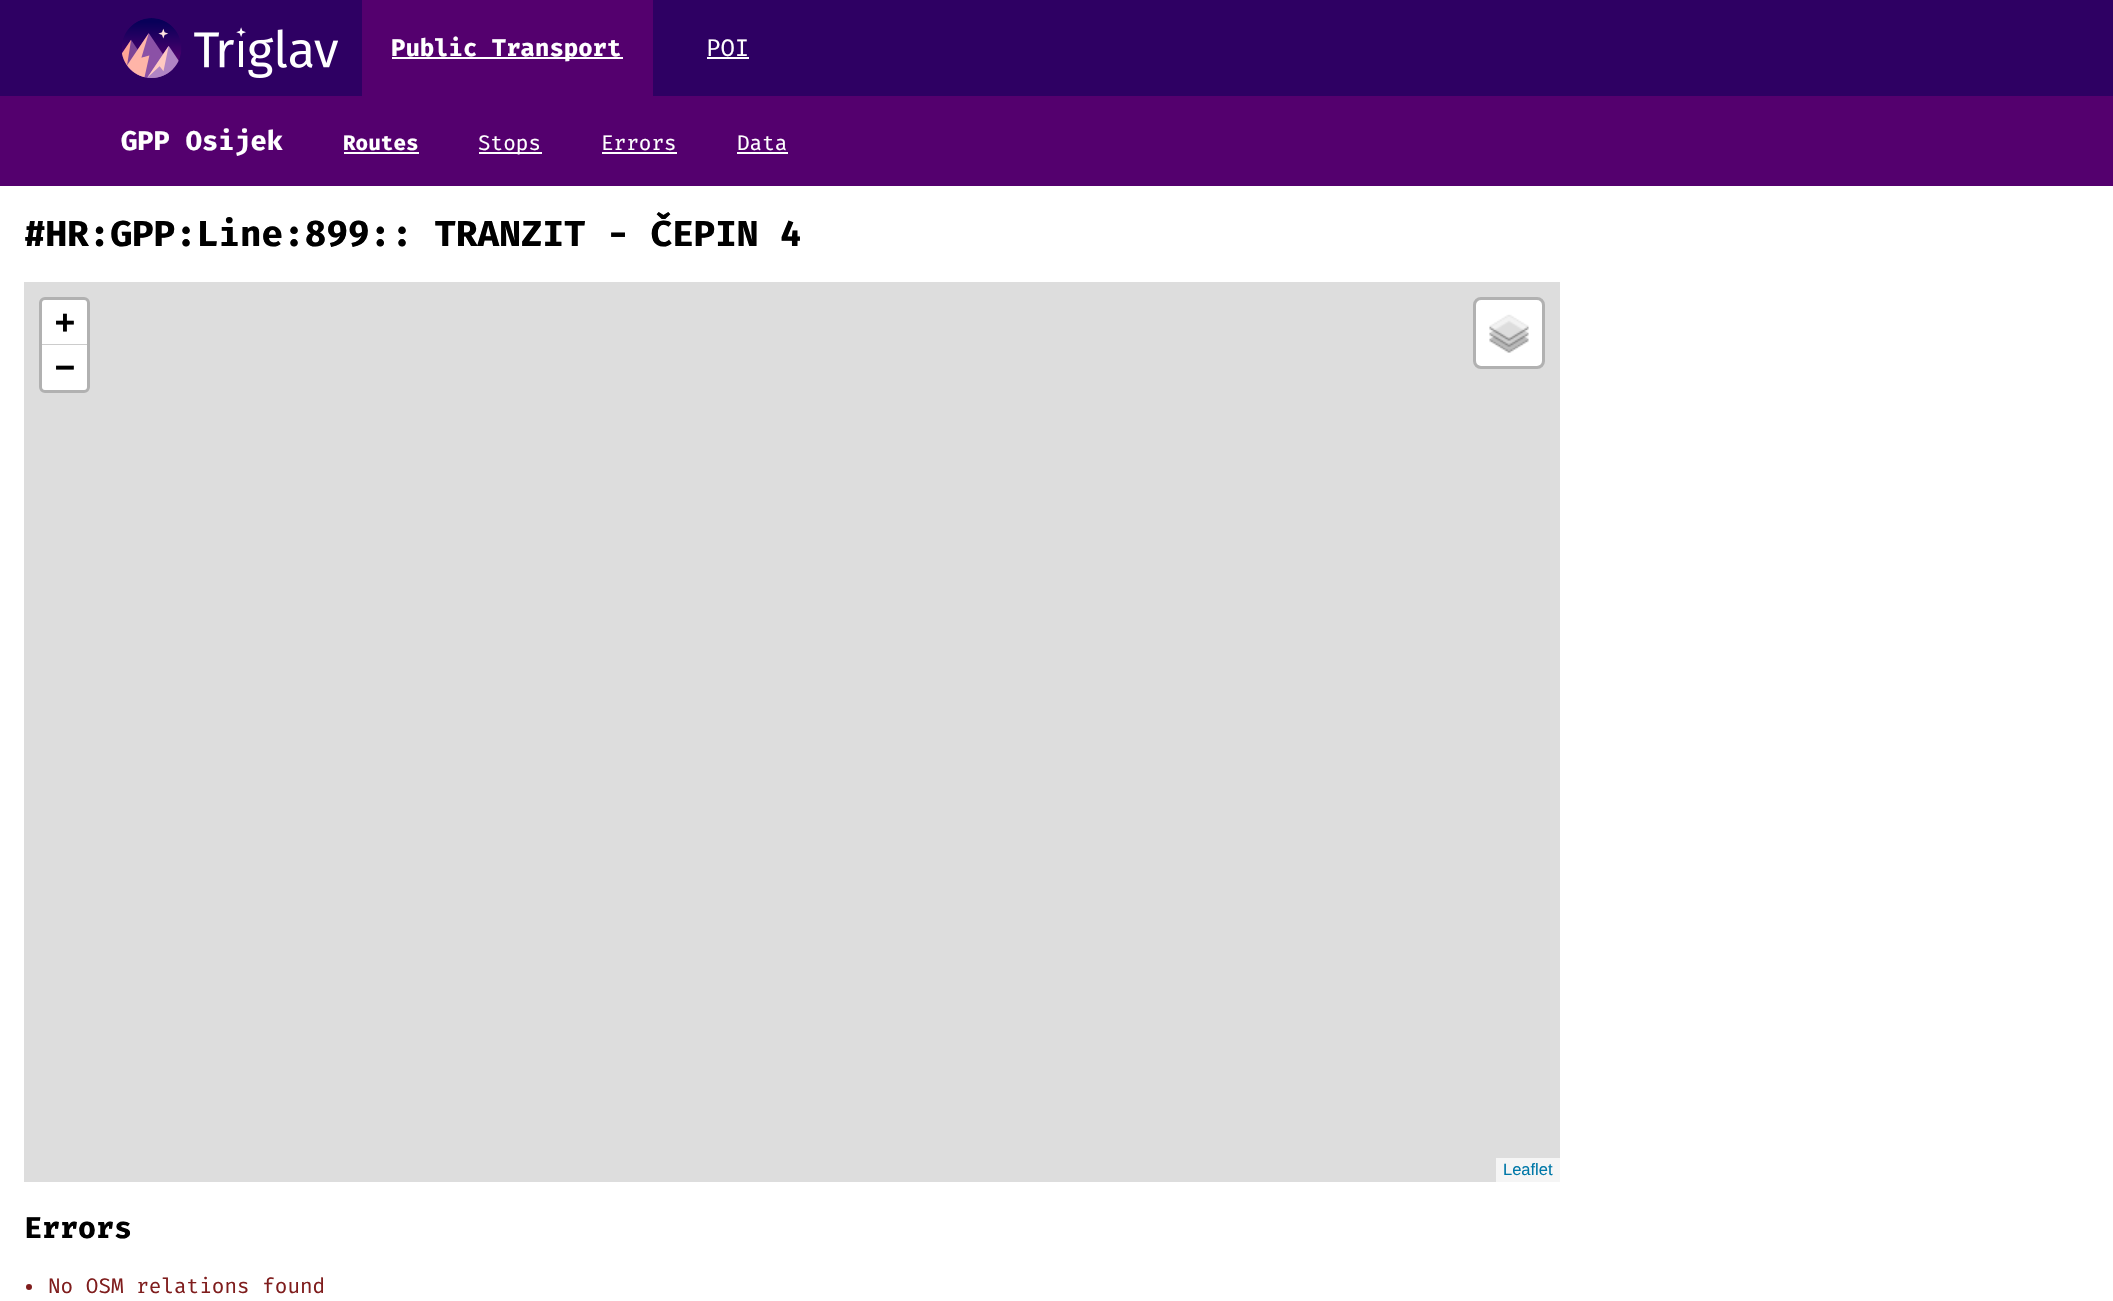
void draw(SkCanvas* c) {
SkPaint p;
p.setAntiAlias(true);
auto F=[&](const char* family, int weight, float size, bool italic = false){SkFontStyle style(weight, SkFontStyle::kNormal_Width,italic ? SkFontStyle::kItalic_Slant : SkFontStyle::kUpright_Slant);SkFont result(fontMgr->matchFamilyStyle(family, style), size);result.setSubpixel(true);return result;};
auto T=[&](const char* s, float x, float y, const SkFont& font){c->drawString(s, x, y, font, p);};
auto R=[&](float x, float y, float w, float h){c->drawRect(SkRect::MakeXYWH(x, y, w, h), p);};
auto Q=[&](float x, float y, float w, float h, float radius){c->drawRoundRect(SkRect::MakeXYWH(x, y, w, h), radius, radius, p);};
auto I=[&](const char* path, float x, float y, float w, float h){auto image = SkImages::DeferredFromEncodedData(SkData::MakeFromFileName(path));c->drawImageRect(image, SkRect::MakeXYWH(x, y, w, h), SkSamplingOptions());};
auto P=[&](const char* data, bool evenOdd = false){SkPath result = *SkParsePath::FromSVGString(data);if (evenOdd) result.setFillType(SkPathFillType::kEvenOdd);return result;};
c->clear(0xffffffff);
p.setColor(0xff2e0063);
R(0,0,2113,96);
I("1.png",122,18,216,60);
p.setColor(0xff54006e);
R(362,0,291,96);
p.setColor(0xffffffff);
R(392,57,231,2);
auto f1 = F("Fira Mono",700,24);
T("Public Transport",391,56,f1);
auto f2 = F("Fira Mono",400,24);
T("POI",706,56,f2);
R(707,57,42,2);
p.setColor(0xff54006e);
R(0,96,2113,90);
auto f3 = F("Fira Mono",700,27);
p.setColor(0xffffffff);
T("GPP Osijek",121,150,f3);
auto f4 = F("Fira Mono",700,21);
T("Routes",343,150,f4);
R(344,152,75,2);
R(479,152,63,2);
auto f5 = F("Fira Mono",400,21);
T("Stops",478,150,f5);
T("Errors",601,150,f5);
R(602,152,75,2);
T("Data",737,150,f5);
R(737,152,51,2);
auto f6 = F("Fira Mono",700,36);
p.setColor(0xff000000);
T("#HR:GPP:Line:899:: TRANZIT - ČEPIN 4",24,246,f6);
p.setColor(0xffdddddd);
R(24,282,1536,900);
p.setStroke(true);
p.setStrokeWidth(3);
p.setColor(0xffb1b1b1);
c->drawRoundRect(SkRect::MakeXYWH(40.5,298.5,48,93),4.5,4.5,p);
p.setStroke(false);
p.setColor(0xffffffff);
c->drawPath(P("M45 300h39c1.5 0 3 1.5 3 3v41h-45v-41c0-1.5 1.5-3 3-3z"),p);
p.setColor(0xffcccccc);
R(42,344,45,1);
auto f7 = F("DejaVu Sans Mono",700,33);
p.setColor(0xff000000);
T("+",55,333,f7);
p.setColor(0xffffffff);
c->drawPath(P("M42 345h45v42c0 1.5-1.5 3-3 3h-39c-1.5 0-3-1.5-3-3z"),p);
p.setColor(0xff000000);
T("−",55,378,f7);
p.setColor(0xffffffff);
Q(1476,300,66,66,5);
p.setStroke(true);
p.setColor(0x33000000);
c->drawRoundRect(SkRect::MakeXYWH(1474.5,298.5,69,69),6.5,6.5,p);
I("2.png",1489,314,40,39);
p.setStroke(false);
p.setColor(0xfff5f5f5);
R(1496,1158,64,24);
auto f8 = F("Liberation Sans",400,16.5);
p.setColor(0xff0078a8);
T("Leaflet",1503,1175,f8);
auto f9 = F("Fira Mono",700,30);
p.setColor(0xff000000);
T("Errors",24,1238,f9);
p.setColor(0xff7f1d1d);
c->drawCircle(29,1287,3,p);
T("No OSM relations found",48,1293,f5);
}
